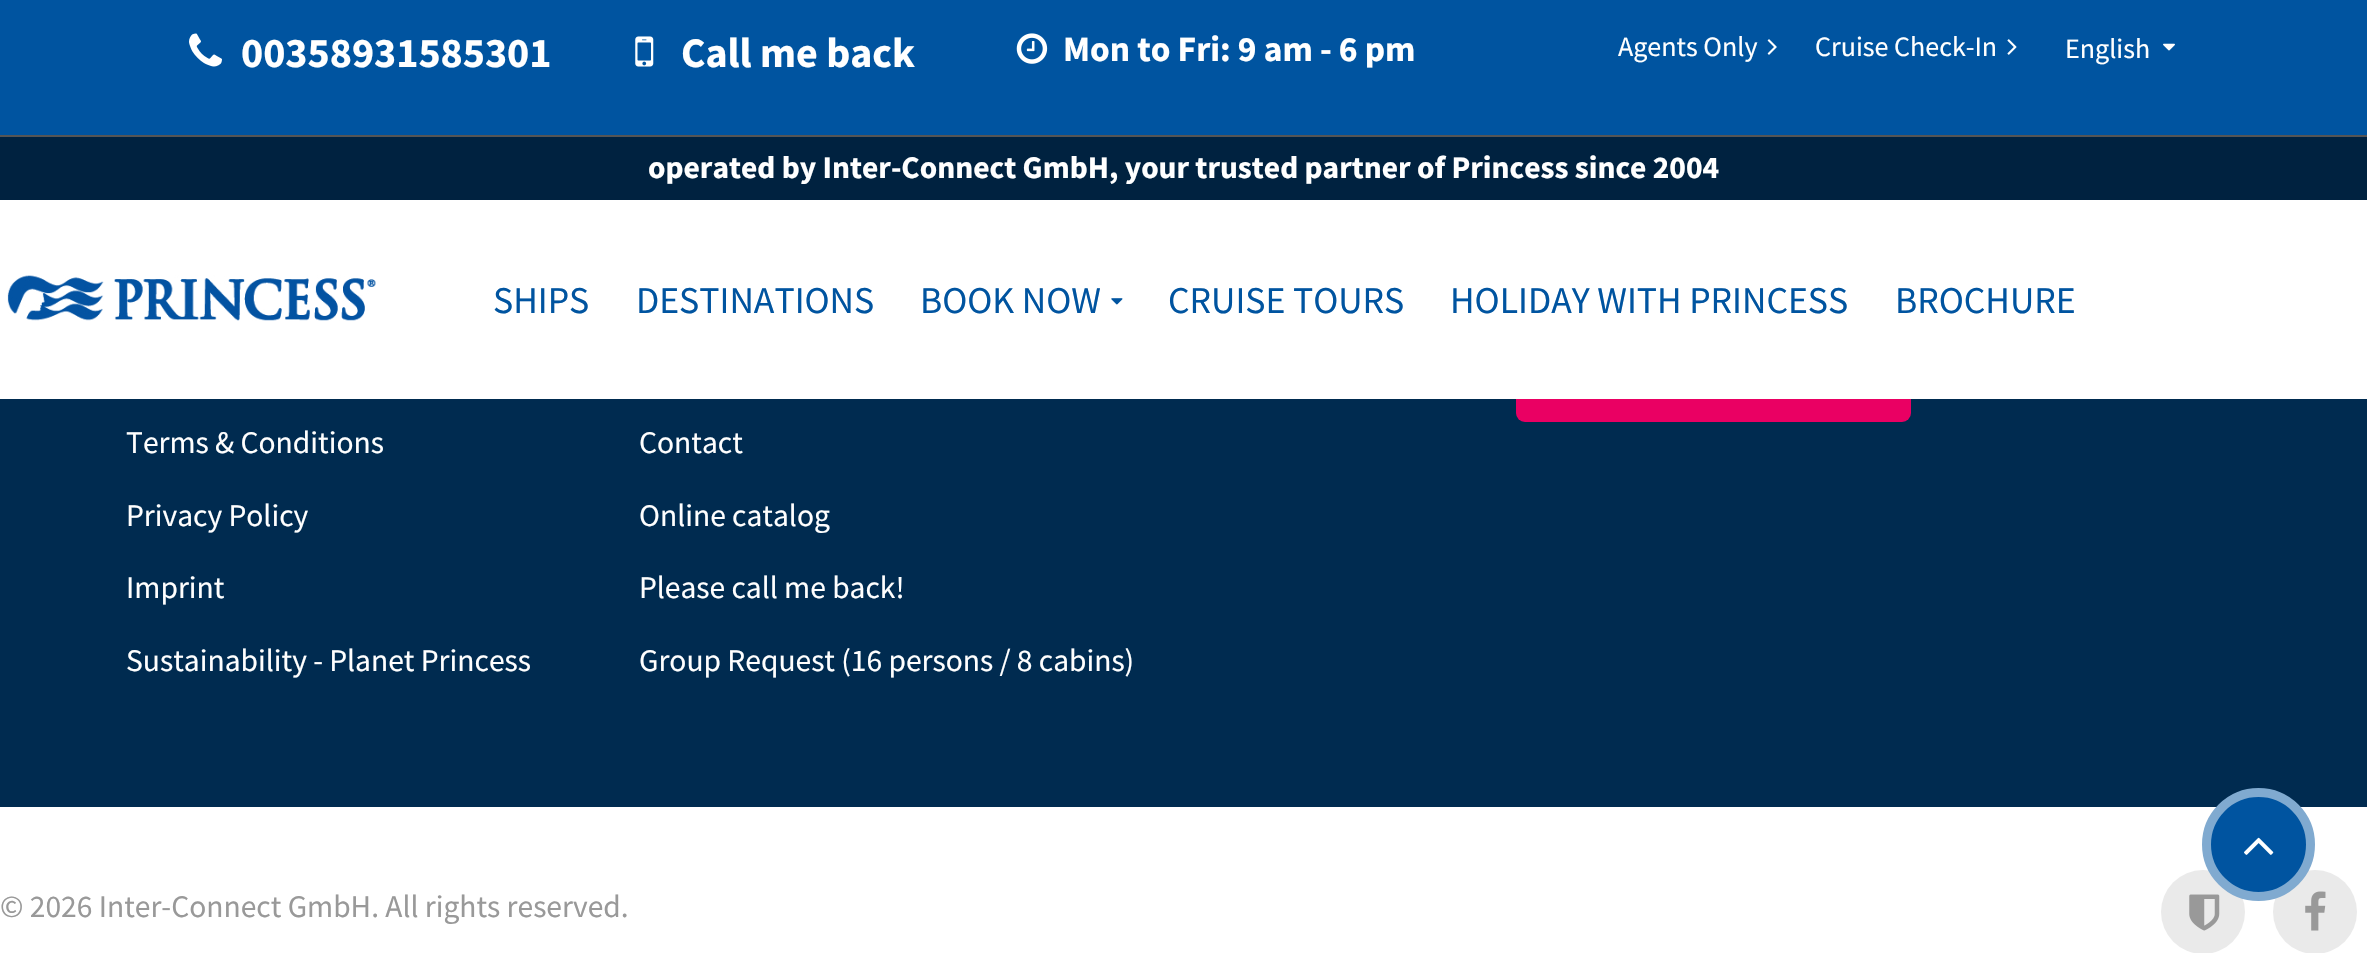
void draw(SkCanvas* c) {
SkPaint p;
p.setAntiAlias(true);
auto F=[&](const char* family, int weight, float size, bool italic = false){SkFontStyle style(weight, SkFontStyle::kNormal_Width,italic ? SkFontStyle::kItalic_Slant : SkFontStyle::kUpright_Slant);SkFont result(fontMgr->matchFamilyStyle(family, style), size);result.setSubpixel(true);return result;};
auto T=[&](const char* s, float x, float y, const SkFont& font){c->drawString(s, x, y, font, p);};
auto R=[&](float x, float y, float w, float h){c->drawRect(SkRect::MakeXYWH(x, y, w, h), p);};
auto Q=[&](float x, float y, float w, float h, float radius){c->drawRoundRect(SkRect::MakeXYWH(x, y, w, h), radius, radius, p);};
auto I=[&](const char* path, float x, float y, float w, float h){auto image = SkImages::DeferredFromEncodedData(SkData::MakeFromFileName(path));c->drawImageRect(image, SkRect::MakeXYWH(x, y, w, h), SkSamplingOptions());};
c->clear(0xffffffff);
p.setColor(0xff002b50);
R(0,399,2367,408);
p.setColor(0xffea0063);
Q(1516,350,395,72,9);
p.setColor(0xffffffff);
R(1516,350,395,49);
p.setColor(0xff0054a0);
R(0,0,2367,135);
p.setColor(0xff555555);
R(0,135,2367,2);
I("1.png",189,33,33,34);
auto f1 = F("Source Sans Pro",700,42);
p.setColor(0xffffffff);
T("00358931585301",241,67,f1);
I("2.png",635,36,19,31);
T("Call me back",681,67,f1);
I("3.png",1016,33,32,31);
auto f2 = F("Source Sans Pro",700,35.5);
T("Mon to Fri: 9 am - 6 pm",1063,61,f2);
auto f3 = F("Source Sans Pro",400,28);
T("Agents Only",1618,56,f3);
I("4.png",1767,39,10,16);
T("Cruise Check-In",1815,56,f3);
I("5.png",2007,39,10,16);
T("English",2065,58,f3);
I("6.png",2163,43,12,8);
p.setColor(0xff002240);
R(0,137,2367,63);
auto f4 = F("Source Sans Pro",700,31.5);
p.setColor(0xffffffff);
T("operated by Inter-Connect GmbH, your trusted partner of Princess since 2004",648,178,f4);
I("7.png",7,275,369,46);
auto f5 = F("Source Sans Pro",400,37.75);
p.setColor(0xff0054a0);
T("SHIPS",493,313,f5);
T("DESTINATIONS",636,313,f5);
T("BOOK NOW",920,313,f5);
I("8.png",1111,298,12,7);
T("CRUISE TOURS",1168,313,f5);
T("HOLIDAY WITH PRINCESS",1450,313,f5);
T("BROCHURE",1895,313,f5);
auto f6 = F("Source Sans Pro",400,31.5);
p.setColor(0xffffffff);
T("Terms & Conditions",126,453,f6);
T("Privacy Policy",126,526,f6);
T("Imprint",126,598,f6);
T("Sustainability - Planet Princess",126,671,f6);
T("Contact",639,453,f6);
T("Online catalog",639,526,f6);
T("Please call me back!",639,598,f6);
T("Group Request (16 persons / 8 cabins)",639,671,f6);
p.setColor(0xffeaeaea);
c->drawCircle(2203,912,42,p);
I("10.png",2189,894,31,37);
c->drawCircle(2315,912,42,p);
I("11.png",2305,891,21,40);
p.setColor(0xff0054a0);
c->drawCircle(2258.5,844.5,52,p);
p.setStroke(true);
p.setStrokeWidth(9);
p.setColor(0xff80aad0);
c->drawCircle(2258.5,844.5,52,p);
I("9.png",2244,837,30,18);
p.setStroke(false);
p.setColor(0xff999999);
T("© 2026 Inter-Connect GmbH. All rights reserved.",0,917,f6);
}
